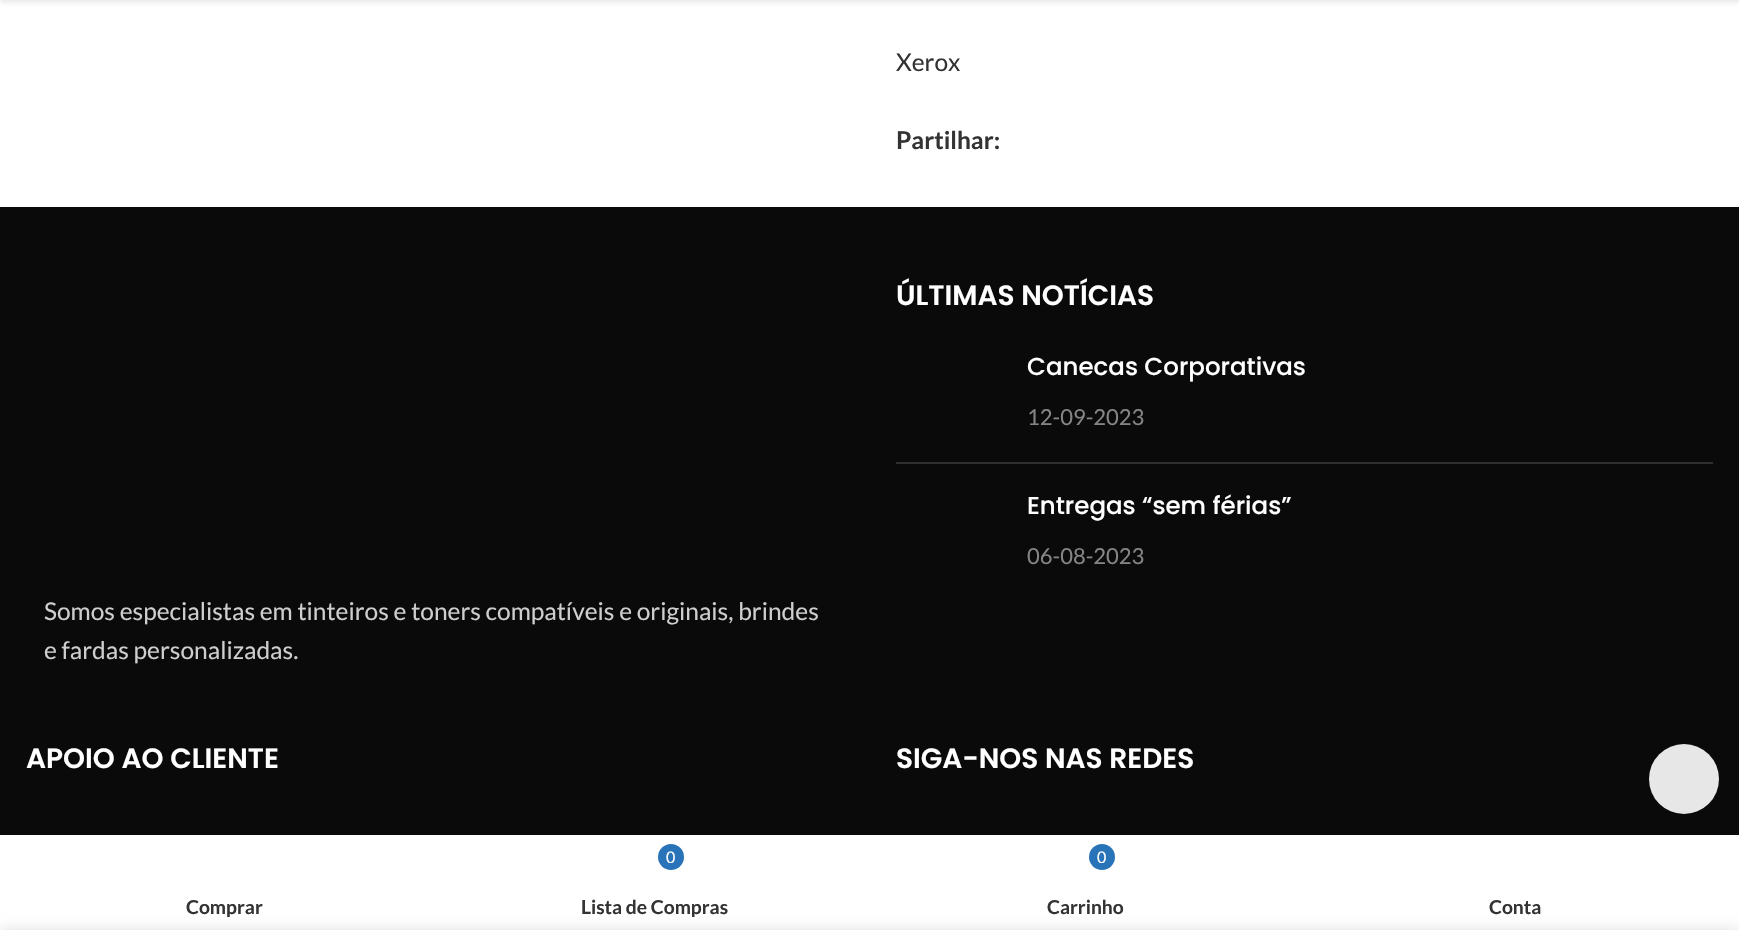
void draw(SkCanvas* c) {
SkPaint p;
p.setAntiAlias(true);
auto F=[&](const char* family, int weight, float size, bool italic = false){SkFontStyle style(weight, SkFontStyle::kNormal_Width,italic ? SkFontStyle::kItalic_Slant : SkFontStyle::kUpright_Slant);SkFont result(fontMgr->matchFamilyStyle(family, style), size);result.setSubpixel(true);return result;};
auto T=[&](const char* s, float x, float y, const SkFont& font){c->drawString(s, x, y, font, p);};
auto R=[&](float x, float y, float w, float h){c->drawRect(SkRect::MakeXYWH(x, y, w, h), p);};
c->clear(0xffffffff);
p.setColor(0x1a000000);
p.setMaskFilter(SkMaskFilter::MakeBlur(kNormal_SkBlurStyle, 2.5));
c->drawRect(SkRect::MakeXYWH(0,-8,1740,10),p);
p.setMaskFilter(nullptr);
auto f1 = F("Lato",400,24.5);
p.setColor(0xff333333);
T("Xerox",896,71,f1);
auto f2 = F("Lato",700,24.5);
T("Partilhar:",896,149,f2);
p.setColor(0xff0a0a0a);
R(0,207,1739,628);
auto f3 = F("Poppins",600,28);
p.setColor(0xffffffff);
T("ÚLTIMAS NOTÍCIAS",896,305,f3);
p.setColor(0xff2f2f2f);
R(896,462,817,2);
auto f4 = F("Poppins",500,24.5);
p.setColor(0xffffffff);
T("Canecas Corporativas",1027,375,f4);
auto f5 = F("Lato",400,22);
p.setColor(0xff858585);
T("12-09-2023",1027,425,f5);
p.setColor(0xffffffff);
T("Entregas “sem férias”",1027,514,f4);
p.setColor(0xff858585);
T("06-08-2023",1027,564,f5);
p.setColor(0xffcecece);
T("Somos especialistas em tinteiros e toners compatíveis e originais, brindes",44,620,f1);
T("e fardas personalizadas.",44,659,f1);
p.setColor(0xffffffff);
T("APOIO AO CLIENTE",26,768,f3);
T("SIGA-NOS NAS REDES",896,768,f3);
p.setColor(0xffe7e7e7);
c->drawCircle(1684,779,35,p);
p.setColor(0x1f000000);
p.setMaskFilter(SkMaskFilter::MakeBlur(kNormal_SkBlurStyle, 8));
c->drawRect(SkRect::MakeXYWH(0,835,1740,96),p);
p.setMaskFilter(nullptr);
p.setColor(0xffffffff);
R(0,835,1739,95);
c->save();
c->clipRect(SkRect::MakeXYWH(26,894,396,23));
auto f6 = F("Lato",700,19.25);
p.setColor(0xff333333);
T("Comprar",186,914,f6);
c->restore();
p.setColor(0xff2974b8);
c->drawCircle(671,857,13,p);
auto f7 = F("Lato",400,16);
p.setColor(0xffffffff);
T("0",666,863,f7);
c->save();
c->clipRect(SkRect::MakeXYWH(457,894,395,23));
p.setColor(0xff333333);
T("Lista de Compras",581,914,f6);
c->restore();
p.setColor(0xff2974b8);
c->drawCircle(1102,857,13,p);
p.setColor(0xffffffff);
T("0",1097,863,f7);
p.setColor(0xff333333);
T("Carrinho",1047,914,f6);
T("Conta",1489,914,f6);
p.setColor(0x24000000);
p.setMaskFilter(SkMaskFilter::MakeBlur(kNormal_SkBlurStyle, 8));
c->drawRect(SkRect::MakeXYWH(0,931,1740,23),p);
p.setMaskFilter(nullptr);
}
